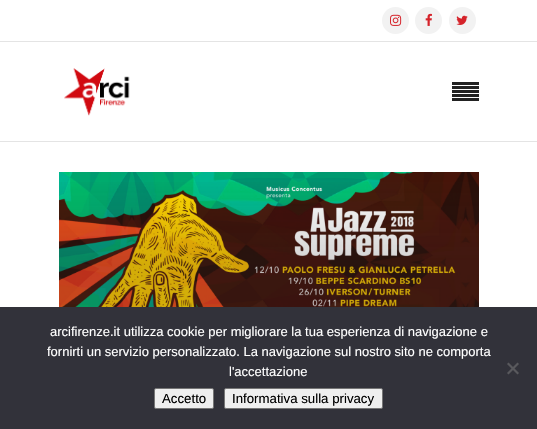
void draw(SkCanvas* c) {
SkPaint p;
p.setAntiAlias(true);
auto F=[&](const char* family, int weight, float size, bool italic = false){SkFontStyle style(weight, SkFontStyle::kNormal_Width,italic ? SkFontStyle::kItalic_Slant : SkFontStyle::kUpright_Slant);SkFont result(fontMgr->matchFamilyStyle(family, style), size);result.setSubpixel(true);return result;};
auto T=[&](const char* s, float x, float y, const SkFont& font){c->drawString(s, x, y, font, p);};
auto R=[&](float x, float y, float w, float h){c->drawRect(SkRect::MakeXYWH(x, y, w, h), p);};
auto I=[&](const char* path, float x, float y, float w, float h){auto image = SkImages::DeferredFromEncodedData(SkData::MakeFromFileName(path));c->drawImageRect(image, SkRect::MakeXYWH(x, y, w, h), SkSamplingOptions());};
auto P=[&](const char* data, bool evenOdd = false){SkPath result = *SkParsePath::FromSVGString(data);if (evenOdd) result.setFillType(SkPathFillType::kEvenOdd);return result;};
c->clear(0xffffffff);
p.setColor(0xffe4e4e4);
R(0,41,537,1);
p.setColor(0xfff2f2f2);
c->drawCircle(395.5,20.5,13.5,p);
I("1.png",390,14,12,12);
c->drawCircle(428.5,20.5,13.5,p);
I("2.png",425,13,7,13);
c->drawCircle(462.5,20.5,13.5,p);
I("3.png",456,15,12,10);
p.setColor(0xffe4e4e4);
R(0,141,537,1);
I("4.png",64,68,66,48);
p.setColor(0xff222222);
R(452,82,27,3);
R(452,86,27,3);
R(452,90,27,3);
R(452,94,27,3);
R(452,98,27,3);
I("5.png",59,172,420,135);
{
const SkColor colors[] = {0x00222222,0x33222222,0x33222222,0x4d222222,0xff222222};
const float stops[] = {0,.25,.45,.8,1};
const SkPoint ends[] = {{269,172}, {269,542}};
p.setShader(SkGradientShader::MakeLinear(ends, colors, stops, 5, SkTileMode::kClamp));
p.setAlpha(255);
}
R(59,182,420,125);
p.setShader(nullptr);
p.setColor(0xff32323a);
R(0,307,537,122);
auto f1 = F("Liberation Sans",400,13);
p.setColor(0xffffffff);
T("arcifirenze.it utilizza cookie per migliorare la tua esperienza di navigazione e",50,336,f1);
T("fornirti un servizio personalizzato. La navigazione sul nostro sito ne comporta",47,356,f1);
T("l'accettazione",229,376,f1);
p.setColor(0xff59595d);
c->drawPath(P("M517.5 362.5l1.5 1.5l-10.5 10.5l-1.5-1.5z"),p);
c->drawPath(P("M507 364l1.5-1.5l10.5 10.5l-1.5 1.5z"),p);
p.setColor(0xffefefef);
c->drawRoundRect(SkRect::MakeXYWH(154.5,388.5,59,20),1.5,1.5,p);
p.setStroke(true);
p.setStrokeWidth(1);
p.setColor(0xff767676);
c->drawRoundRect(SkRect::MakeXYWH(154.5,388.5,59,20),1.5,1.5,p);
auto f2 = F("Liberation Sans",400,13.25);
p.setStroke(false);
p.setColor(0xff000000);
T("Accetto",162,403,f2);
p.setColor(0xffefefef);
c->drawRoundRect(SkRect::MakeXYWH(224.5,388.5,158,20),1.5,1.5,p);
p.setStroke(true);
p.setColor(0xff767676);
c->drawRoundRect(SkRect::MakeXYWH(224.5,388.5,158,20),1.5,1.5,p);
p.setStroke(false);
p.setColor(0xff000000);
T("Informativa sulla privacy",232,403,f2);
}
